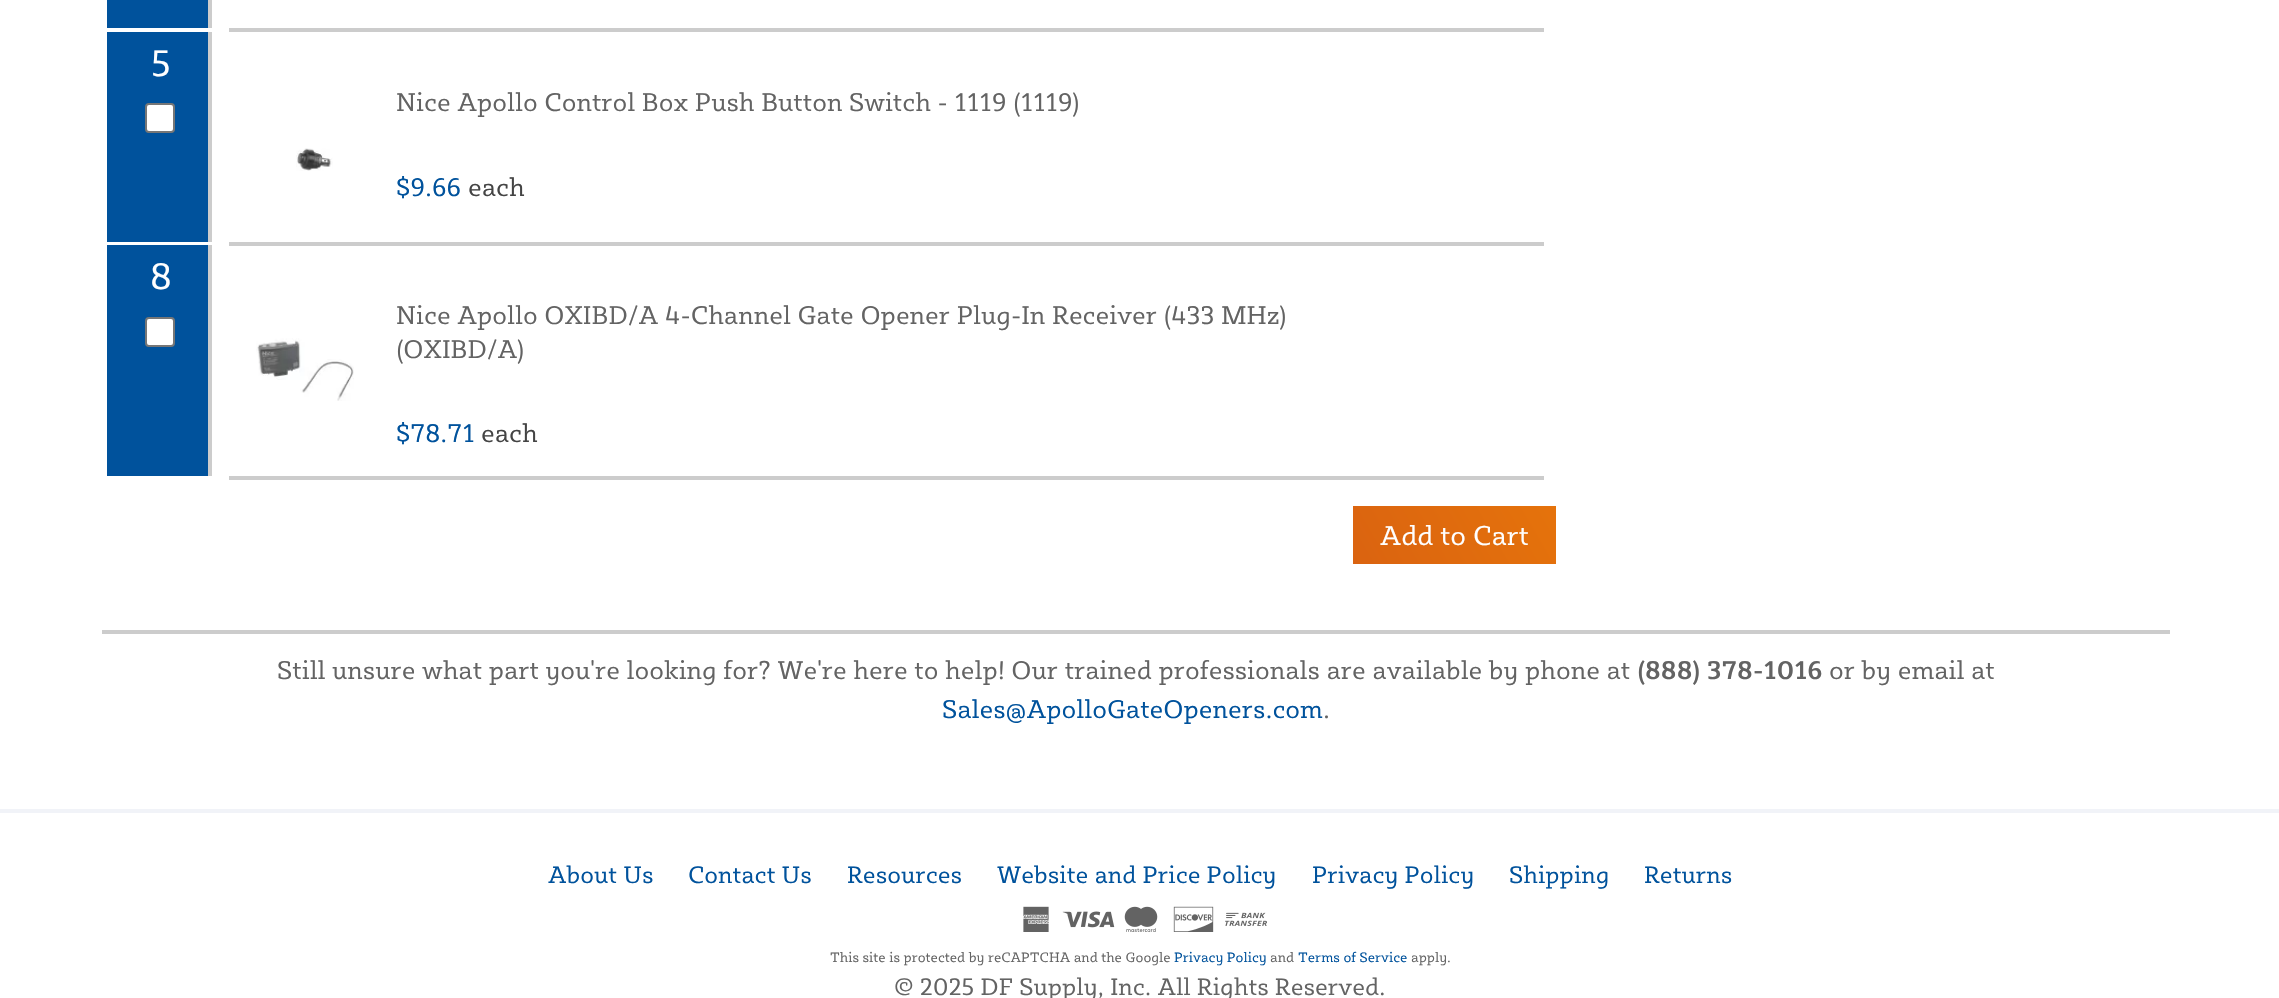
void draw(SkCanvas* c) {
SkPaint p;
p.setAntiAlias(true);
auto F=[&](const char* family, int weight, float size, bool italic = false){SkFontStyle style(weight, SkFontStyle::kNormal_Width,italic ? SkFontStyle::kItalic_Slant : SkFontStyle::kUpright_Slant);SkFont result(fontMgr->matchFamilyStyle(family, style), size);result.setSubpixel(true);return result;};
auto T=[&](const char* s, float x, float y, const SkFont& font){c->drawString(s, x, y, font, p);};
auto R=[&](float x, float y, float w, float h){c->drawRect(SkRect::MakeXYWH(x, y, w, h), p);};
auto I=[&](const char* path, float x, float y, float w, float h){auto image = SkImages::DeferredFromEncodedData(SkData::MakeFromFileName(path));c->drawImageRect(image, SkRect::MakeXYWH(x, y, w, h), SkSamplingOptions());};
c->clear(0xffffffff);
p.setColor(0xffcccccc);
R(229,28,1315,4);
p.setColor(0xff00529c);
R(107,0,101,28);
p.setColor(0xffcccccc);
R(208,0,4,28);
R(229,242,1315,4);
p.setColor(0xff00529c);
R(107,32,101,210);
p.setColor(0xffcccccc);
R(208,32,4,210);
auto f1 = F("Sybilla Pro",400,38);
p.setColor(0xffffffff);
T("5",151,76,f1);
c->drawRoundRect(SkRect::MakeXYWH(146,104,28,28),3,3,p);
p.setStroke(true);
p.setStrokeWidth(2);
p.setColor(0xff767676);
c->drawRoundRect(SkRect::MakeXYWH(146,104,28,28),3,3,p);
I("1.png",296,148,37,23);
auto f2 = F("Sybilla Pro",400,26.25);
p.setStroke(false);
p.setColor(0xff636363);
T("Nice Apollo Control Box Push Button Switch - 1119 (1119)",396,111,f2);
p.setColor(0xff00529c);
T("$9.66",396,196,f2);
p.setColor(0xff444444);
T("each",468,196,f2);
p.setColor(0xffcccccc);
R(229,476,1315,4);
p.setColor(0xff00529c);
R(107,245,101,231);
p.setColor(0xffcccccc);
R(208,245,4,231);
p.setColor(0xffffffff);
T("8",150,289,f1);
c->drawRoundRect(SkRect::MakeXYWH(146,318,28,28),3,3,p);
p.setStroke(true);
p.setColor(0xff767676);
c->drawRoundRect(SkRect::MakeXYWH(146,318,28,28),3,3,p);
I("2.png",256,338,98,63);
p.setStroke(false);
p.setColor(0xff636363);
T("Nice Apollo OXIBD/A 4-Channel Gate Opener Plug-In Receiver (433 MHz)",396,324,f2);
T("(OXIBD/A)",396,358,f2);
p.setColor(0xff00529c);
T("$78.71",396,442,f2);
p.setColor(0xff444444);
T("each",481,442,f2);
{
const SkColor colors[] = {0xffcf5315,0xffcf5315,0xffe6740b,0xffcf5315,0xffe6740b};
const float stops[] = {0,.13,.2,.27,1};
const SkPoint ends[] = {{998,681}, {1505,388}};
p.setShader(SkGradientShader::MakeLinear(ends, colors, stops, 5, SkTileMode::kClamp));
p.setAlpha(255);
}
R(1353,506,203,58);
auto f3 = F("Sybilla Pro",400,28);
p.setShader(nullptr);
p.setColor(0xffffffff);
T("Add to Cart",1380,545,f3);
p.setColor(0xffcccccc);
R(102,630,2068,4);
p.setColor(0xff636363);
T("Still unsure what part you're looking for? We're here to help! Our trained professionals are available by phone at",277,679,f2);
auto f4 = F("Sybilla Pro",500,26.25);
T("(888) 378-1016",1637,679,f4);
T("or by email at",1829,679,f2);
p.setColor(0xff00529c);
T("Sales@ApolloGateOpeners.com",942,718,f2);
p.setColor(0xff636363);
T(".",1323,718,f2);
p.setColor(0xfff1f3f8);
R(0,809,2279,4);
auto f5 = F("Sybilla Pro",400,24.5);
p.setColor(0xff00529c);
T("About Us",548,883,f5);
T("Contact Us",688,883,f5);
T("Resources",847,883,f5);
T("Website and Price Policy",997,883,f5);
T("Privacy Policy",1312,883,f5);
T("Shipping",1509,883,f5);
T("Returns",1644,883,f5);
I("3.png",1023,906,26,26);
I("4.png",1062,911,53,17);
I("5.png",1124,906,34,26);
I("6.png",1173,906,41,26);
I("7.png",1225,912,42,14);
auto f6 = F("Sybilla Pro",400,14);
p.setColor(0xff636363);
T("This site is protected by reCAPTCHA and the Google",830,962,f6);
p.setColor(0xff00529c);
T("Privacy Policy",1174,962,f6);
p.setColor(0xff636363);
T("and",1270,962,f6);
p.setColor(0xff00529c);
T("Terms of Service",1298,962,f6);
p.setColor(0xff636363);
T("apply.",1411,962,f6);
T("© 2025 DF Supply, Inc. All Rights Reserved.",894,995,f5);
}
